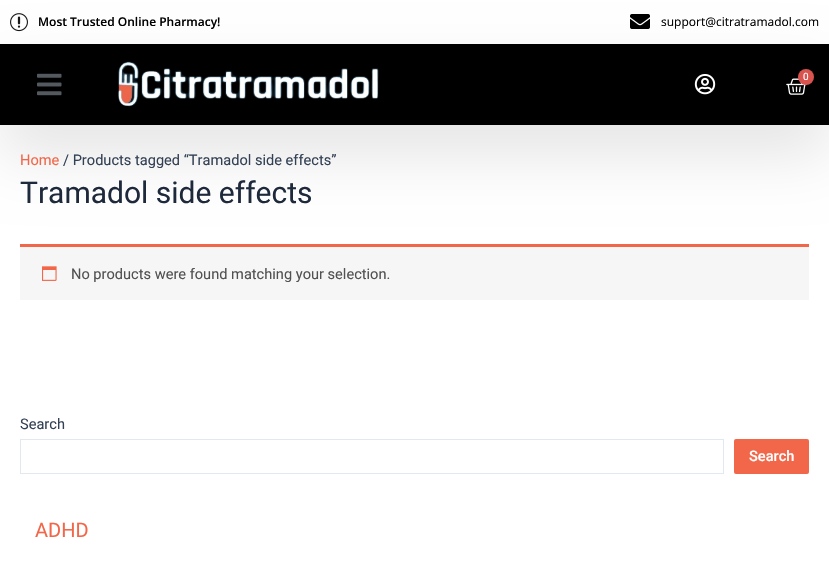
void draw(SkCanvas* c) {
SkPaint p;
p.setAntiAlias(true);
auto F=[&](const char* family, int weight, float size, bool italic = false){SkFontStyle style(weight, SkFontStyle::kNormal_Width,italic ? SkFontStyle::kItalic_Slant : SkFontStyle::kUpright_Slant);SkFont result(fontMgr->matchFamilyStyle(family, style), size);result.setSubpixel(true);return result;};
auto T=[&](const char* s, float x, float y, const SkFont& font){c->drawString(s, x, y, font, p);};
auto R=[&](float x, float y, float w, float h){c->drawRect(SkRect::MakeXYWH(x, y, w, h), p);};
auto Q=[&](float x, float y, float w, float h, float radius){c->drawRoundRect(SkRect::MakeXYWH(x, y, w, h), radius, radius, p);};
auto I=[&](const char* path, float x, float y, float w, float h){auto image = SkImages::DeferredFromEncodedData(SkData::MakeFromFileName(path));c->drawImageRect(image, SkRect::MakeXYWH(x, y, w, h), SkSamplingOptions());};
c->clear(0xffffffff);
I("1.png",10,13,18,19);
auto f1 = F("Open Sans",600,12);
p.setColor(0xff000000);
T("Most Trusted Online Pharmacy!",38,26,f1);
I("2.png",630,14,20,15);
auto f2 = F("Open Sans",400,12);
T("support@citratramadol.com",661,26,f2);
p.setColor(0xfff26649);
R(20,244,789,3);
p.setColor(0x1a000000);
p.setMaskFilter(SkMaskFilter::MakeBlur(kNormal_SkBlurStyle, 30));
c->drawRect(SkRect::MakeXYWH(0,74,829,81),p);
p.setMaskFilter(nullptr);
p.setColor(0xff000000);
R(0,44,829,81);
I("3.png",37,73,25,23);
I("4.png",117,61,262,46);
I("5.png",694,74,22,21);
I("6.png",786,78,21,17);
p.setColor(0xffd9534f);
c->drawCircle(806,77,8,p);
auto f3 = F("Roboto",400,10);
p.setColor(0xffffffff);
T("0",803,80,f3);
auto f4 = F("Roboto",400,14.6);
p.setColor(0xfff26649);
T("Home",20,165,f4);
p.setColor(0xff334155);
T("/ Products tagged “Tramadol side effects”",63,165,f4);
auto f5 = F("Roboto",400,30);
p.setColor(0xff1e293b);
T("Tramadol side effects",20,203,f5);
p.setColor(0xfff7f6f7);
R(20,247,789,53);
I("7.png",42,266,15,15);
p.setColor(0xff515151);
T("No products were found matching your selection.",71,279,f4);
p.setColor(0xff334155);
T("Search",20,429,f4);
p.setStroke(true);
p.setStrokeWidth(1);
p.setColor(0xffe2e8f0);
c->drawRect(SkRect::MakeXYWH(20.5,439.5,703,34),p);
p.setStroke(false);
p.setColor(0xfff26649);
Q(734,439,75,35,2);
auto f6 = F("Roboto",500,14.6);
p.setColor(0xffffffff);
T("Search",749,461,f6);
auto f7 = F("Roboto",400,20);
p.setColor(0xfff26649);
T("ADHD",35,537,f7);
}
